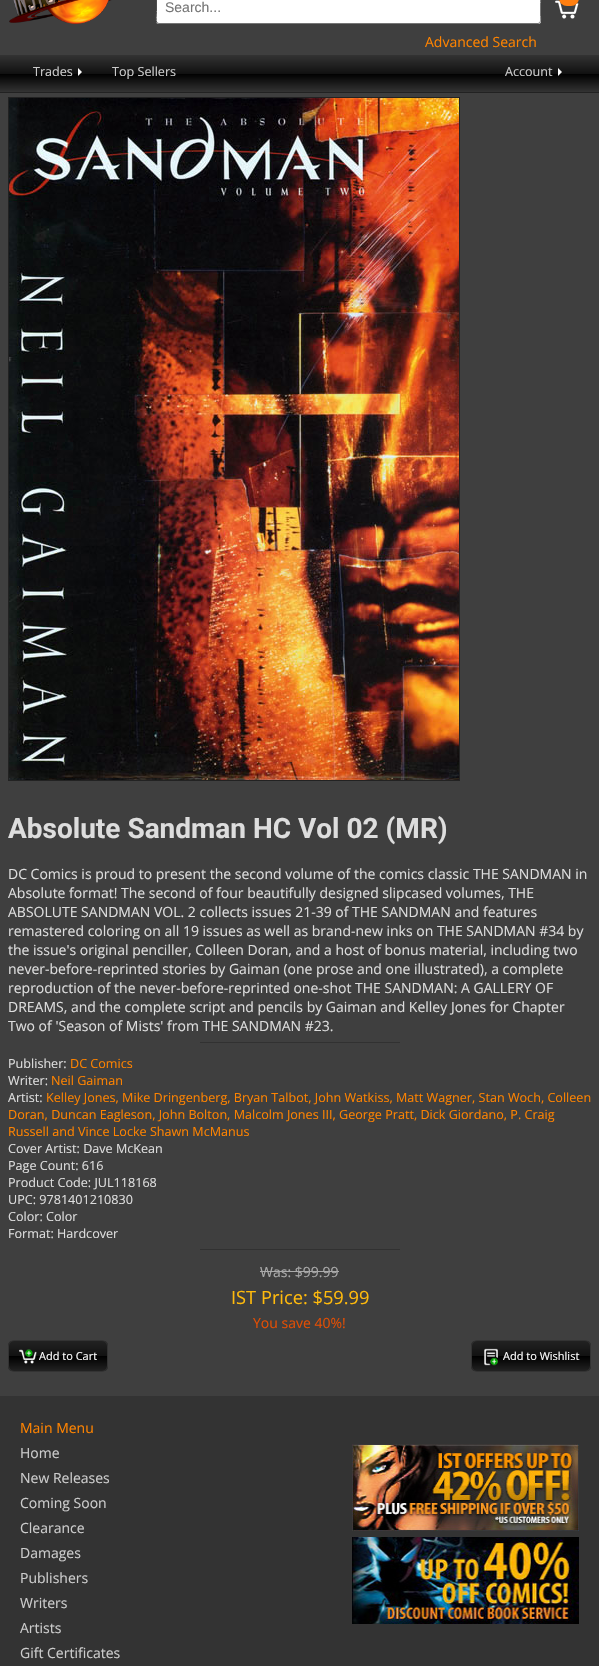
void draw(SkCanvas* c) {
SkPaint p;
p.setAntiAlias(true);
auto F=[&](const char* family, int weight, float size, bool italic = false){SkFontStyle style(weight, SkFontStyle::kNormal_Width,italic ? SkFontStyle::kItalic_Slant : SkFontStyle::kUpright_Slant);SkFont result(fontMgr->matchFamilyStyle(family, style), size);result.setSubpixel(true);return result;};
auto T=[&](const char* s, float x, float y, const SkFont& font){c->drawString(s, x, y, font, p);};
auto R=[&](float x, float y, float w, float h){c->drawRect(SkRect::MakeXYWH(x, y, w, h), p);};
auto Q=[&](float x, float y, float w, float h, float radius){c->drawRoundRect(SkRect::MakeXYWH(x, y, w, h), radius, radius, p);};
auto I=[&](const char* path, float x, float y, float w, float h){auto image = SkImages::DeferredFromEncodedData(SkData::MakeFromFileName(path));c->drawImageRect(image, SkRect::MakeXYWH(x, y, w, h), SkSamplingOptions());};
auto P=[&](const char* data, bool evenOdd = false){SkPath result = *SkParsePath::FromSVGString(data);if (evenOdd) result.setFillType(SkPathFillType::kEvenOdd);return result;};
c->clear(0xff3f3f3f);
I("1.png",9,0,103,24);
p.setColor(0xffffffff);
Q(156,-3,385,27,3);
p.setStroke(true);
p.setStrokeWidth(1);
p.setColor(0xff767676);
c->drawPath(P("M540-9c1.5 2 .5 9 .5 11.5v14c0 1.5 1 6.5-2.5 7h-379l-2-.5"),p);
p.setColor(0xff4f4f4f);
c->drawPath(P("M157 23c-1.5-2-.5-9-.5-11.5v-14c0-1.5-1-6.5 2.5-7h379l2 .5"),p);
auto f1 = F("Liberation Sans",400,14);
p.setStroke(false);
p.setColor(0xff757575);
T("Search...",165,12,f1);
auto f2 = F("Open Sans",400,14);
p.setColor(0xfffe8300);
T("Advanced Search",425,47,f2);
I("2.png",555,0,24,19);
p.setColor(0xffff7f10);
Q(559,-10,20,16,9.5);
{
const SkColor colors[] = {0xff333333,0xff111111,0xff000000,0xff333333};
const float stops[] = {0,.5,.51,1};
const SkPoint ends[] = {{300,55}, {300,92}};
p.setShader(SkGradientShader::MakeLinear(ends, colors, stops, 4, SkTileMode::kClamp));
p.setAlpha(255);
}
R(0,55,599,37);
p.setShader(nullptr);
p.setColor(0xff222222);
R(0,92,599,1);
auto f3 = F("Open Sans",400,12.6);
p.setColor(0xffcccccc);
T("Trades",33,76,f3);
p.setColor(0xffffffff);
c->drawPath(P("M78 76v-8l4 4z"),p);
p.setColor(0xffcccccc);
T("Top Sellers",112,76,f3);
T("Account",505,76,f3);
p.setColor(0xffffffff);
c->drawPath(P("M558 76v-8l4 4z"),p);
p.setStroke(true);
p.setColor(0xff222222);
c->drawRect(SkRect::MakeXYWH(8.5,97.5,451,683),p);
I("3.png",9,98,450,682);
auto f4 = F("Roboto",700,28);
p.setStroke(false);
p.setColor(0xffdddddd);
T("Absolute Sandman HC Vol 02 (MR)",8,838,f4);
T("DC Comics is proud to present the second volume of the comics classic THE SANDMAN in",8,879,f2);
T("Absolute format! The second of four beautifully designed slipcased volumes, THE",8,898,f2);
T("ABSOLUTE SANDMAN VOL. 2 collects issues 21-39 of THE SANDMAN and features",8,917,f2);
T("remastered coloring on all 19 issues as well as brand-new inks on THE SANDMAN #34 by",8,936,f2);
T("the issue's original penciller, Colleen Doran, and a host of bonus material, including two",8,955,f2);
T("never-before-reprinted stories by Gaiman (one prose and one illustrated), a complete",8,974,f2);
T("reproduction of the never-before-reprinted one-shot THE SANDMAN: A GALLERY OF",8,993,f2);
T("DREAMS, and the complete script and pencils by Gaiman and Kelley Jones for Chapter",8,1012,f2);
T("Two of 'Season of Mists' from THE SANDMAN #23.",8,1031,f2);
p.setColor(0xff313131);
R(200,1042,200,1);
p.setColor(0xffdddddd);
T("Publisher:",8,1068,f3);
p.setColor(0xfffe8300);
T("DC Comics",70,1068,f3);
p.setColor(0xffdddddd);
T("Writer:",8,1085,f3);
p.setColor(0xfffe8300);
T("Neil Gaiman",51,1085,f3);
p.setColor(0xffdddddd);
T("Artist:",8,1102,f3);
p.setColor(0xfffe8300);
T("Kelley Jones, Mike Dringenberg, Bryan Talbot, John Watkiss, Matt Wagner, Stan Woch, Colleen",46,1102,f3);
T("Doran, Duncan Eagleson, John Bolton, Malcolm Jones III, George Pratt, Dick Giordano, P. Craig",8,1119,f3);
T("Russell and Vince Locke Shawn McManus",8,1136,f3);
p.setColor(0xffdddddd);
T("Cover Artist: Dave McKean",8,1153,f3);
T("Page Count: 616",8,1170,f3);
T("Product Code: JUL118168",8,1187,f3);
T("UPC: 9781401210830",8,1204,f3);
T("Color: Color",8,1221,f3);
T("Format: Hardcover",8,1238,f3);
p.setColor(0xff313131);
R(200,1249,200,1);
p.setColor(0xffaaaaaa);
T("Was: $99.99",260,1277,f2);
R(260,1271,79,1);
auto f5 = F("Open Sans",400,18.25);
p.setColor(0xffffba0c);
T("IST Price: $59.99",231,1304,f5);
p.setColor(0xffe34e03);
T("You save 40%!",253,1328,f2);
c->save();
c->clipPath(P("M14 1340h88c3.5 0 6 2.5 6 6v20c0 3.5-2.5 6-6 6h-88c-3.5 0-6-2.5-6-6v-20c0-3.5 2.5-6 6-6z"),true);
{
const SkColor colors[] = {0xff222222,0xff111111,0xff000000,0xff222222};
const float stops[] = {0,.5,.51,1};
const SkPoint ends[] = {{58,1341}, {58,1371}};
p.setShader(SkGradientShader::MakeLinear(ends, colors, stops, 4, SkTileMode::kClamp));
p.setAlpha(255);
}
R(8,1341,100,30);
c->restore();
p.setStroke(true);
p.setShader(nullptr);
p.setColor(0xff333333);
c->drawRoundRect(SkRect::MakeXYWH(8.5,1340.5,99,31),5.5,5.5,p);
I("4.png",19,1349,18,15);
auto f6 = F("Open Sans",400,11);
p.setStroke(false);
p.setColor(0xffffffff);
T("Add to Cart",39,1360,f6);
c->save();
c->clipPath(P("M477 1340h108c3.5 0 6 2.5 6 6v20c0 3.5-2.5 6-6 6h-108c-3.5 0-6-2.5-6-6v-20c0-3.5 2.5-6 6-6z"),true);
{
const SkColor colors[] = {0xff222222,0xff111111,0xff000000,0xff222222};
const float stops[] = {0,.5,.51,1};
const SkPoint ends[] = {{531,1341}, {531,1371}};
p.setShader(SkGradientShader::MakeLinear(ends, colors, stops, 4, SkTileMode::kClamp));
p.setAlpha(255);
}
R(471,1341,120,30);
c->restore();
p.setStroke(true);
p.setShader(nullptr);
p.setColor(0xff333333);
c->drawRoundRect(SkRect::MakeXYWH(471.5,1340.5,119,31),5.5,5.5,p);
I("5.png",484,1348,14,18);
p.setStroke(false);
p.setColor(0xffffffff);
T("Add to Wishlist",503,1360,f6);
p.setColor(0xff333333);
R(0,1396,599,270);
p.setColor(0xfffe8300);
T("Main Menu",20,1433,f2);
p.setColor(0xffcccccc);
T("Home",20,1458,f2);
T("New Releases",20,1483,f2);
T("Coming Soon",20,1508,f2);
T("Clearance",20,1533,f2);
T("Damages",20,1558,f2);
T("Publishers",20,1583,f2);
T("Writers",20,1608,f2);
T("Artists",20,1633,f2);
T("Gift Certificates",20,1658,f2);
I("6.png",352,1444,227,87);
I("7.png",352,1537,227,87);
}
